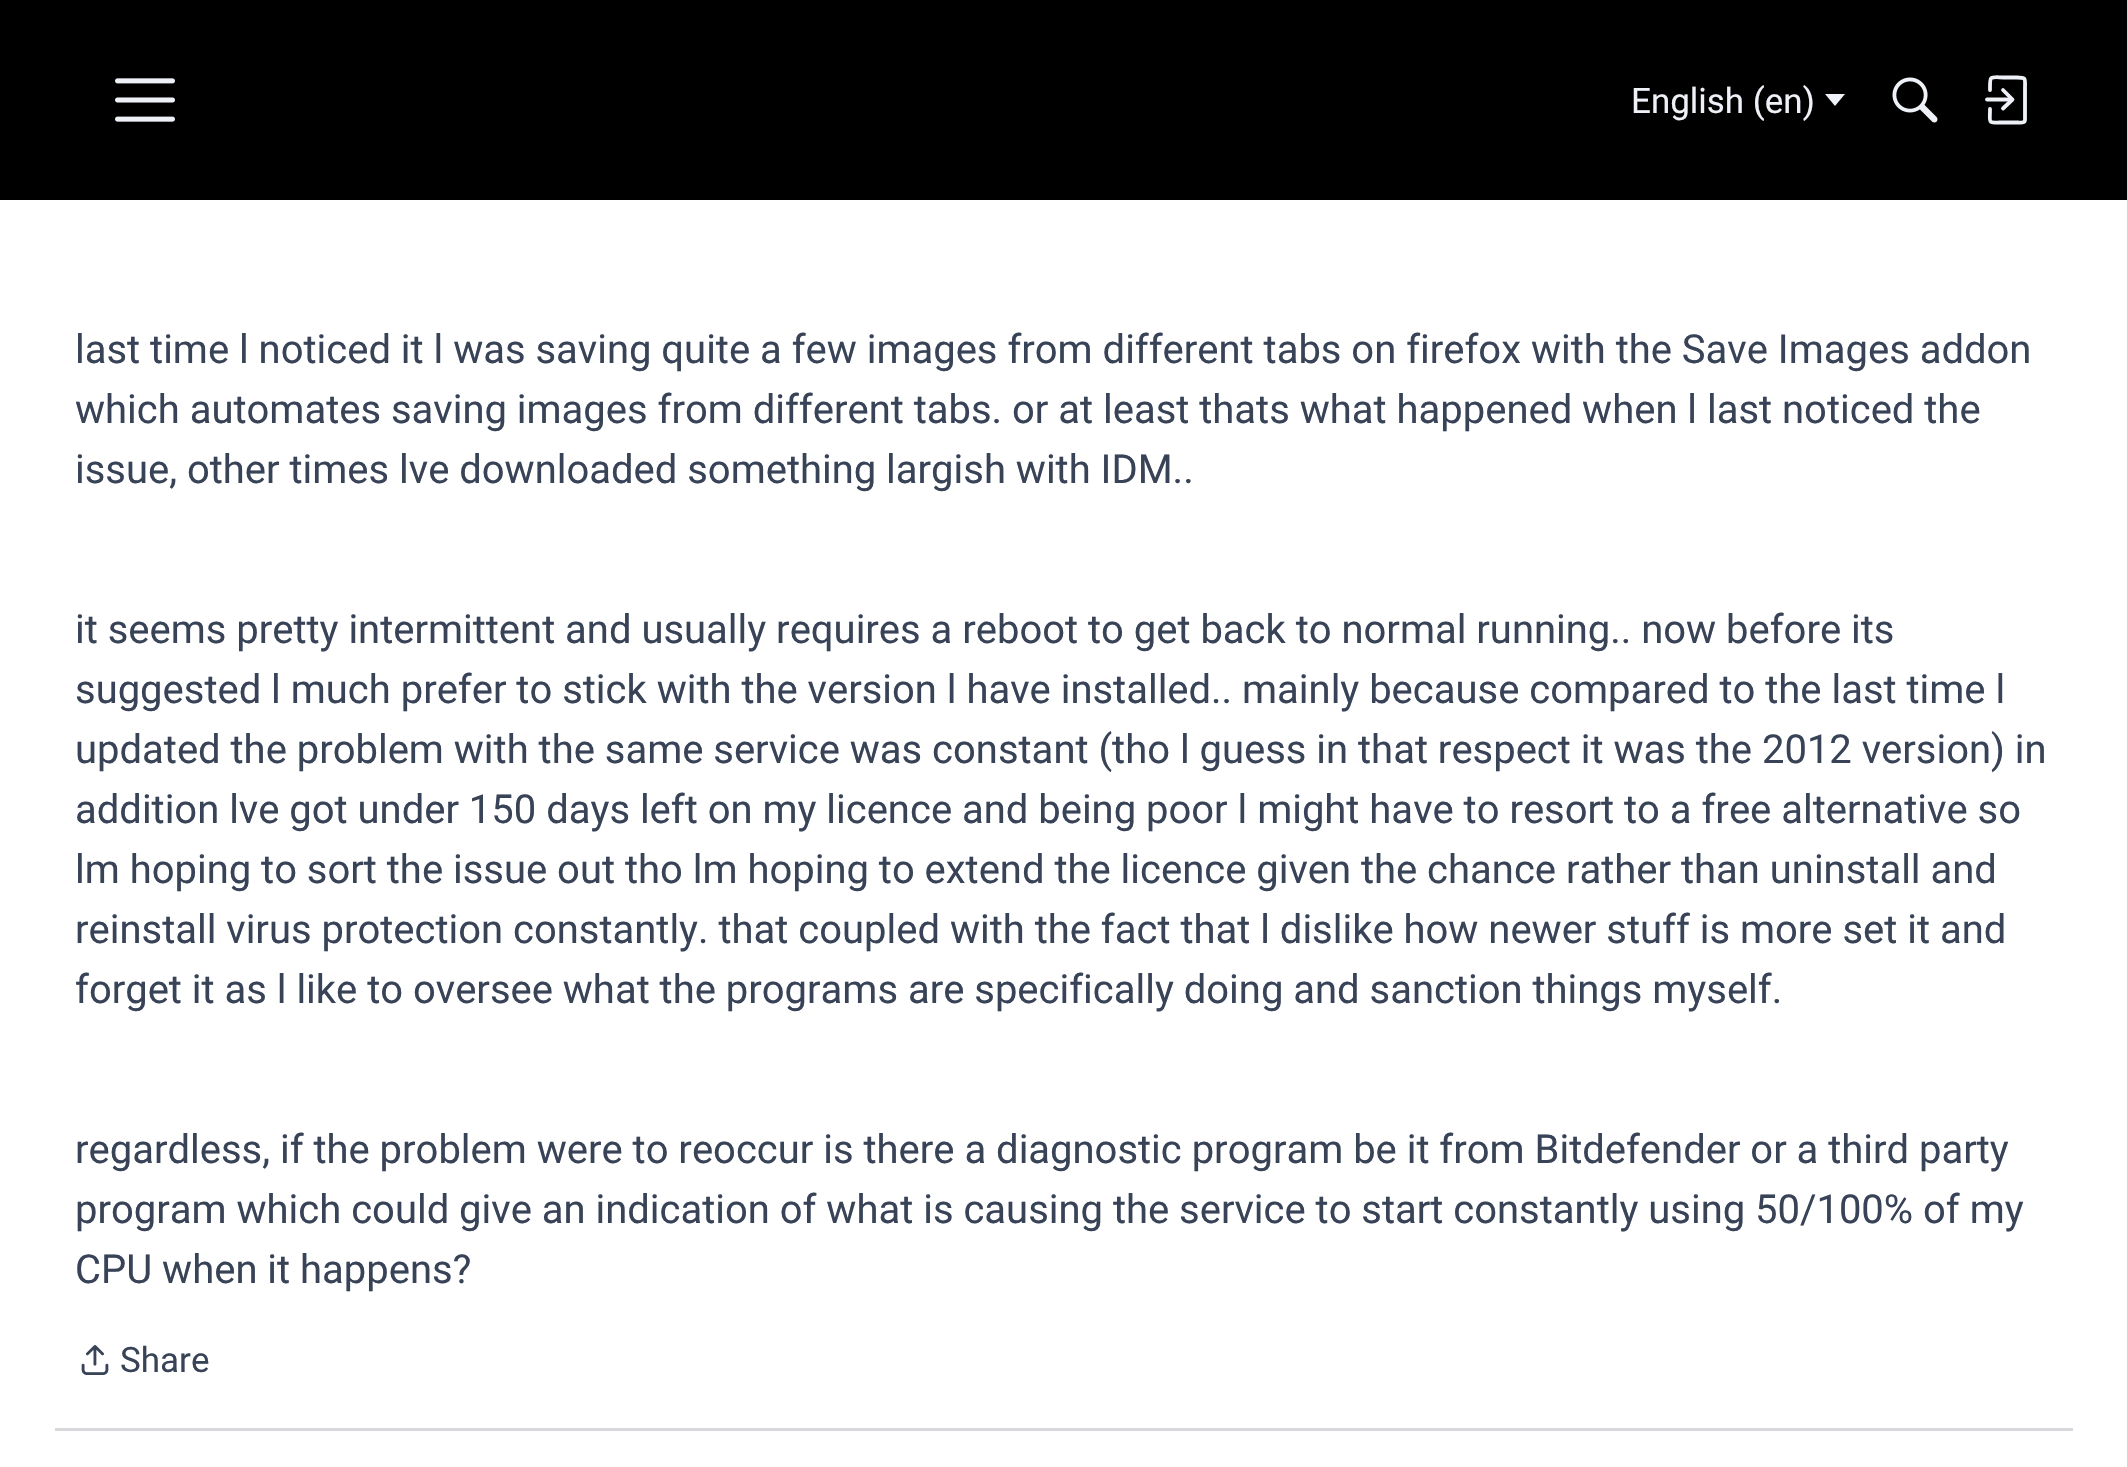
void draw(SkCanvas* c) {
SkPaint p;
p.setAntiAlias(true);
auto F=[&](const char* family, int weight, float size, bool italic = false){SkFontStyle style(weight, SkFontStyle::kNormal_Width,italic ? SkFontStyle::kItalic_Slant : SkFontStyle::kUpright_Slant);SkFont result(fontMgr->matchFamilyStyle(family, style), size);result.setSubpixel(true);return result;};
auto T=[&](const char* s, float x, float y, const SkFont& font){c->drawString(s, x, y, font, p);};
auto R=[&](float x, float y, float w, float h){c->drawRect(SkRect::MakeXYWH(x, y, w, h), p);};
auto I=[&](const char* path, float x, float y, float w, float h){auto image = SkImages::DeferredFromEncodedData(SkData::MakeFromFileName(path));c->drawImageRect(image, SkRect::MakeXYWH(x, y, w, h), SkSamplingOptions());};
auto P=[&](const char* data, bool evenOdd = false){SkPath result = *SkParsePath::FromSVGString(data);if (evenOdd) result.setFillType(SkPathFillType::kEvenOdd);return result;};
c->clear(0xffffffff);
p.setColor(0xff000000);
R(0,0,2127,200);
I("1.png",115,78,60,44);
auto f1 = F("Roboto",400,35);
p.setColor(0xffeff1f9);
T("English (en)",1631,113,f1);
c->drawPath(P("M1825 94h20l-10 12z"),p);
I("2.png",1892,77,46,46);
p.setStroke(true);
p.setStrokeWidth(3.8);
p.setStrokeCap(SkPaint::kRound_Cap);
p.setStrokeJoin(SkPaint::kRound_Join);
c->drawPath(P("M2003 108.5l9.5-9l-9.5-9.5"),p);
p.setStrokeJoin(SkPaint::kMiter_Join);
c->drawPath(P("M2011.5 99.5h-24.5"),p);
p.setStrokeJoin(SkPaint::kRound_Join);
c->drawPath(P("M1990 90c0-16-1-12.5 17.5-12.5h9.5c9.5 0 8 1 8 10.5v31.5c0 4-4 3-7 3h-15c-16 0-13 1.5-13-13.5"),p);
auto f2 = F("Roboto",400,40);
p.setStroke(false);
p.setColor(0xff384357);
T("last time l noticed it l was saving quite a few images from different tabs on firefox with the Save Images addon",75,363,f2);
T("which automates saving images from different tabs. or at least thats what happened when l last noticed the",75,423,f2);
T("issue, other times lve downloaded something largish with IDM..",75,483,f2);
T("it seems pretty intermittent and usually requires a reboot to get back to normal running.. now before its",75,643,f2);
T("suggested l much prefer to stick with the version l have installed.. mainly because compared to the last time l",75,703,f2);
T("updated the problem with the same service was constant (tho l guess in that respect it was the 2012 version) in",75,763,f2);
T("addition lve got under 150 days left on my licence and being poor l might have to resort to a free alternative so",75,823,f2);
T("lm hoping to sort the issue out tho lm hoping to extend the licence given the chance rather than uninstall and",75,883,f2);
T("reinstall virus protection constantly. that coupled with the fact that l dislike how newer stuff is more set it and",75,943,f2);
T("forget it as l like to oversee what the programs are specifically doing and sanction things myself.",75,1003,f2);
T("regardless, if the problem were to reoccur is there a diagnostic program be it from Bitdefender or a third party",75,1163,f2);
T("program which could give an indication of what is causing the service to start constantly using 50/100% of my",75,1223,f2);
T("CPU when it happens?",75,1283,f2);
I("3.png",81,1345,28,30);
T("Share",120,1372,f1);
p.setColor(0xffd7d9dd);
R(55,1428,2018,3);
}
